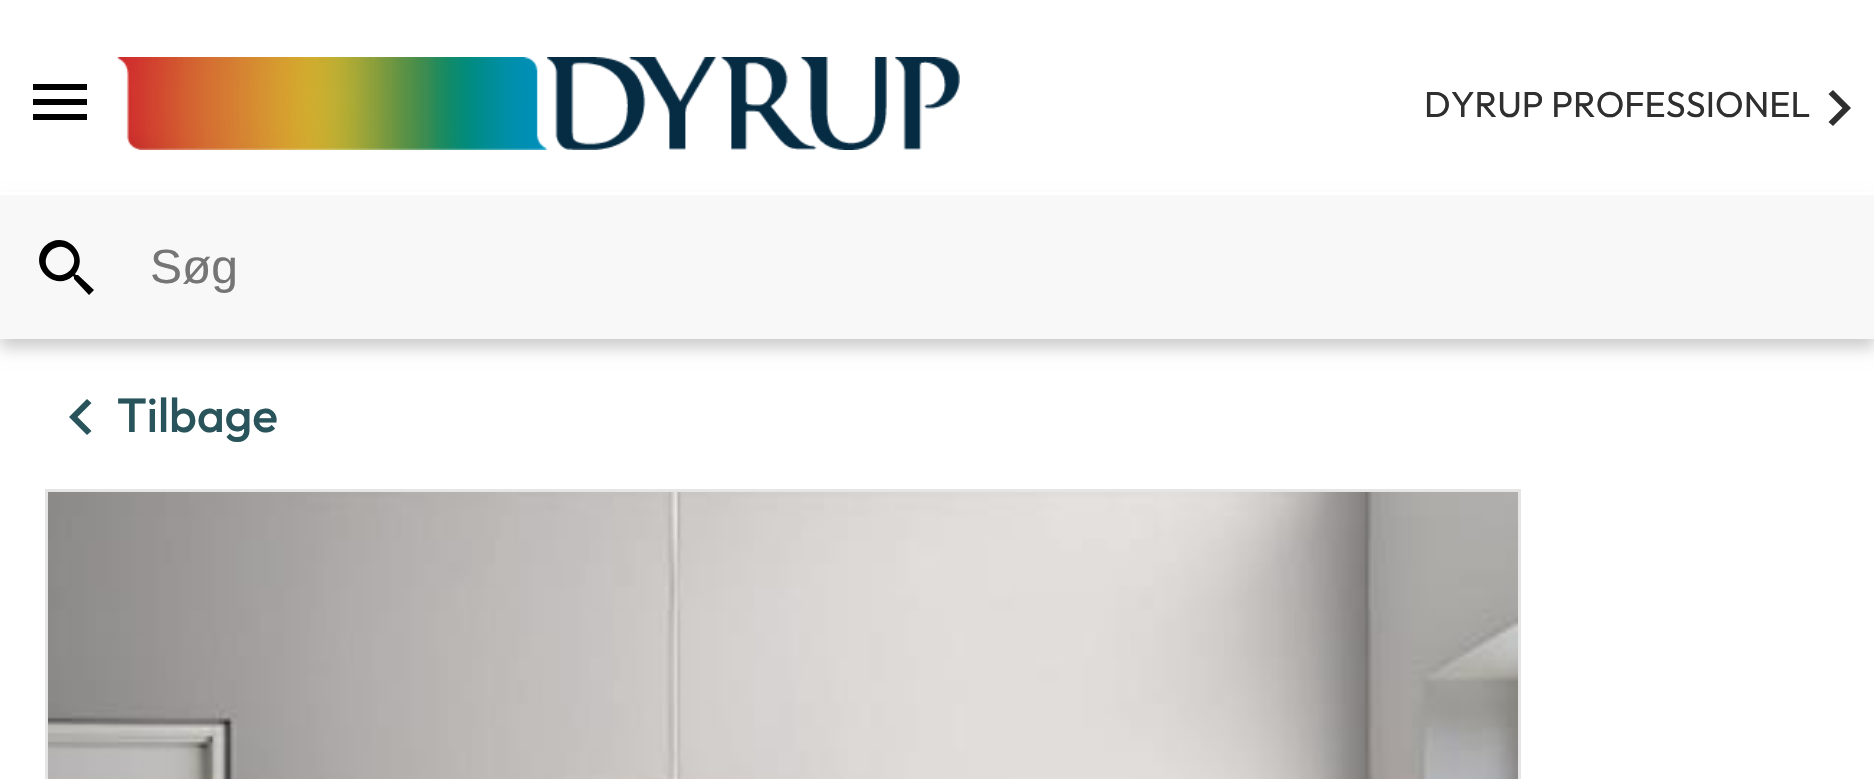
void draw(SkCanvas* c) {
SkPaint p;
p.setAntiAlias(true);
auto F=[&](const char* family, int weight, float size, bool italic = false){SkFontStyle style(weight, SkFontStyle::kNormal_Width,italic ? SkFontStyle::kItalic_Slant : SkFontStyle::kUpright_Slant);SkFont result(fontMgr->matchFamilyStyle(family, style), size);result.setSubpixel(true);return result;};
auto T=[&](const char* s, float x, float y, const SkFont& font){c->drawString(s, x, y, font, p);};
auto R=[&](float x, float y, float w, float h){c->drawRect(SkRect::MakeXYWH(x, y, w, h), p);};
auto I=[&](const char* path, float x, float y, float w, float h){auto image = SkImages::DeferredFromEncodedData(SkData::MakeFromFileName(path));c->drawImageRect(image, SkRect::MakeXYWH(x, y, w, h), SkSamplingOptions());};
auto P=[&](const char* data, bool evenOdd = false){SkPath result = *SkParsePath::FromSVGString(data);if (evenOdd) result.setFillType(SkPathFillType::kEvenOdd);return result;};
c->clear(0xffffffff);
p.setColor(0x33000000);
p.setMaskFilter(SkMaskFilter::MakeBlur(kNormal_SkBlurStyle, 7.5));
c->drawRect(SkRect::MakeXYWH(0,204,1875,144),p);
p.setMaskFilter(nullptr);
p.setColor(0xffffffff);
R(0,192,1874,3);
p.setColor(0xff000000);
c->drawPath(P("M33 84h54v6h-54zm0 21v-6h54v6zm0 15v-6h54v6z"),p);
I("1.png",117,57,843,93);
auto f1 = F("Outfit",400,36);
p.setColor(0xff2f2f2f);
T("DYRUP PROFESSIONEL",1424,117,f1);
c->drawPath(P("M1828.5 122l14-14l-14-14l4.5-4l18 18l-18 18z"),p);
p.setColor(0xfff8f8f8);
R(0,195,1874,144);
p.setColor(0xff000000);
c->drawPath(P("M50 271c13 13 33-7 20-20c-13-13-33 7-20 20zm28 4l16 15l-5 5l-15-16v-2l-1-1c-19 17-46-11-28-30c19-18 46 8 30 28l1 1z"),p);
auto f2 = F("Liberation Sans",400,48);
p.setColor(0xff757575);
T("Søg",150,283,f2);
p.setColor(0xff29545b);
c->drawPath(P("M91.5 403l-14 14l14 14l-4.5 4l-18-18l18-18z"),p);
auto f3 = F("Outfit",500,48);
T("Tilbage",117,432,f3);
p.setStroke(true);
p.setStrokeWidth(3);
p.setColor(0xffe5e5e5);
c->drawRect(SkRect::MakeXYWH(46.5,490.5,1473,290),p);
I("2.png",48,492,1470,287);
}
